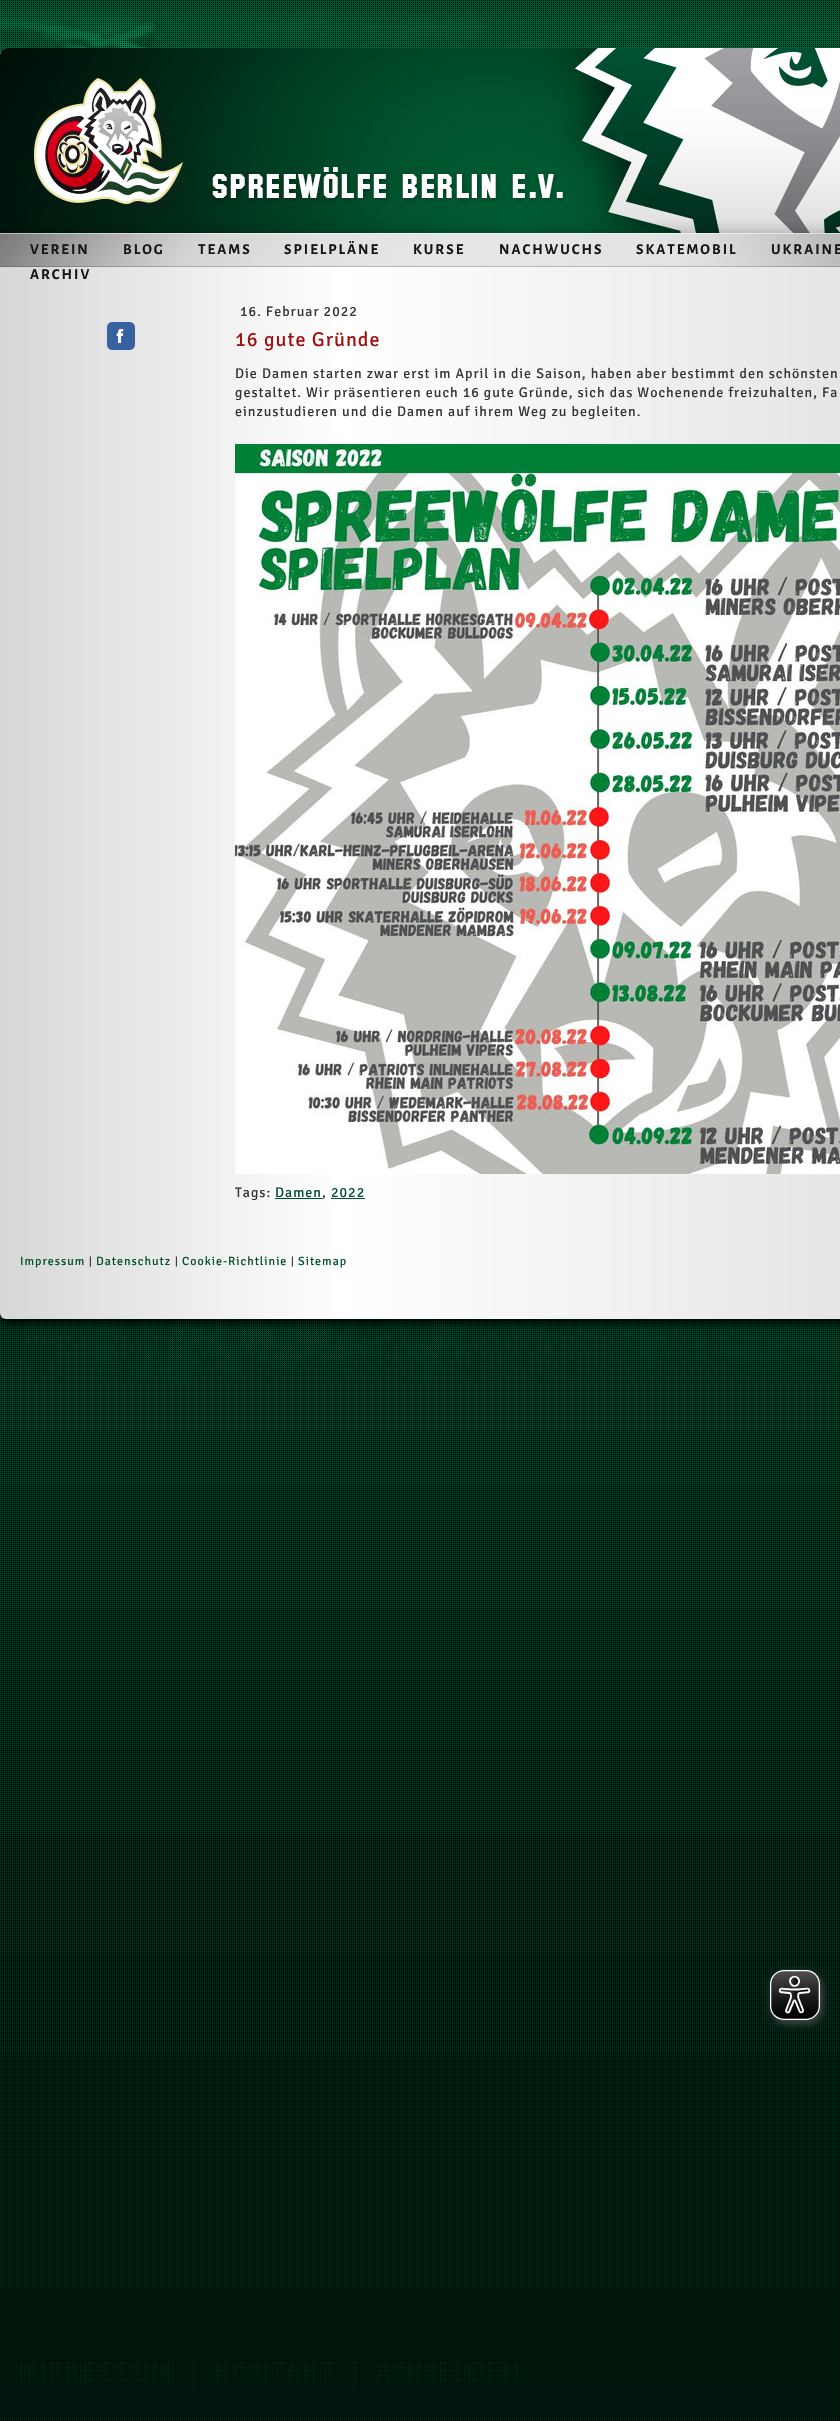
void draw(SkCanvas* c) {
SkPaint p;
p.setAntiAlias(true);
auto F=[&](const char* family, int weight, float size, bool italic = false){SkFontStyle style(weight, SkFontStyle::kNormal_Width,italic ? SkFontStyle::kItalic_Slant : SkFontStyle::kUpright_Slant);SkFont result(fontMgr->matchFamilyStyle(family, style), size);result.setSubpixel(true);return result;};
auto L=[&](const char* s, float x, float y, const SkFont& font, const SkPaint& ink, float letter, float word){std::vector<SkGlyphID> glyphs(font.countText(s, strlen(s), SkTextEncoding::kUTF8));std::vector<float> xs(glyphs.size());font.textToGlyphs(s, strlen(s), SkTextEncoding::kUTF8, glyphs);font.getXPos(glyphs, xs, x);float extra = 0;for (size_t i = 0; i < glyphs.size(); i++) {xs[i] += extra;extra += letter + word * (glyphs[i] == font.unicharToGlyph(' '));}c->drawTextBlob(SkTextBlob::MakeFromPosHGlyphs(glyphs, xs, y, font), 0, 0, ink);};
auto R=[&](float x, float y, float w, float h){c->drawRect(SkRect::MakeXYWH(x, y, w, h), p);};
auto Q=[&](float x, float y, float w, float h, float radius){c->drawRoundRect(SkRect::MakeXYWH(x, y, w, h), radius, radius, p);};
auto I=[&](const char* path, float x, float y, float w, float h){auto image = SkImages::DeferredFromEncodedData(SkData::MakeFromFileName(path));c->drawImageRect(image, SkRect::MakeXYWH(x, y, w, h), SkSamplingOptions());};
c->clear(0xff001b0f);
I("1.png",0,0,840,2387);
I("2.png",1,0,839,2421);
p.setColor(0xff000000);
p.setMaskFilter(SkMaskFilter::MakeBlur(kNormal_SkBlurStyle, 4.5));
c->drawRoundRect(SkRect::MakeXYWH(0,64,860,1259),6,6,p);
p.setMaskFilter(nullptr);
{
const SkColor colors[] = {0xffd7d7d7,0xffffffff,0xffdddddd};
const float stops[] = {0,.34,1};
const SkPoint ends[] = {{0,690}, {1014,690}};
p.setShader(SkGradientShader::MakeLinear(ends, colors, stops, 3, SkTileMode::kClamp));
p.setAlpha(255);
}
Q(0,60,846,1259,6);
I("3.png",0,48,7,7);
I("4.png",0,48,840,185);
I("5.png",0,233,840,34);
auto f1 = F("Alegreya Sans",700,15);
p.setShader(nullptr);
p.setColor(0xff161616);
L("VEREIN",30,254,f1,p,2,0);
L("BLOG",123,254,f1,p,2,0);
L("TEAMS",198,254,f1,p,2,0);
L("SPIELPLÄNE",284,254,f1,p,2,0);
L("KURSE",413,254,f1,p,2,0);
L("NACHWUCHS",499,254,f1,p,2,0);
L("SKATEMOBIL",636,254,f1,p,2,0);
L("UKRAINE",771,254,f1,p,2,0);
L("ARCHIV",30,279,f1,p,2,0);
I("6.png",107,322,28,28);
I("7.png",116,329,8,14);
auto f2 = F("Signika Negative",400,14);
p.setColor(0xff333333);
L("16. Februar 2022",240,316,f2,p,1,0);
auto f3 = F("Signika Negative",400,20);
p.setColor(0xffa10f0f);
L("16 gute Gründe",235,346,f3,p,1,0);
p.setColor(0xff333333);
L("Die Damen starten zwar erst im April in die Saison, haben aber bestimmt den schönsten",235,378,f2,p,1,0);
L("gestaltet. Wir präsentieren euch 16 gute Gründe, sich das Wochenende freizuhalten, Fa",235,397,f2,p,1,0);
L("einzustudieren und die Damen auf ihrem Weg zu begleiten.",235,416,f2,p,1,0);
I("8.png",235,444,605,730);
L("Tags:",235,1197,f2,p,1,0);
p.setColor(0xff00502b);
L("Damen",275,1197,f2,p,1,0);
p.setColor(0xff333333);
L(",",322,1197,f2,p,1,0);
p.setColor(0xff00502b);
R(275,1198,47,1);
R(331,1198,34,1);
L("2022",331,1197,f2,p,1,0);
auto f4 = F("Signika Negative",400,12);
L("Impressum",20,1265,f4,p,1,0);
auto f5 = F("Signika Negative",400,11);
p.setColor(0xff333333);
L("|",89,1265,f5,p,1,0);
p.setColor(0xff00502b);
L("Datenschutz",96,1265,f4,p,1,0);
p.setColor(0xff333333);
L("|",175,1265,f5,p,1,0);
p.setColor(0xff00502b);
L("Cookie-Richtlinie",182,1265,f4,p,1,0);
p.setColor(0xff333333);
L("|",291,1265,f5,p,1,0);
p.setColor(0xff00502b);
L("Sitemap",298,1265,f4,p,1,0);
I("9.png",765,1966,64,64);
}
